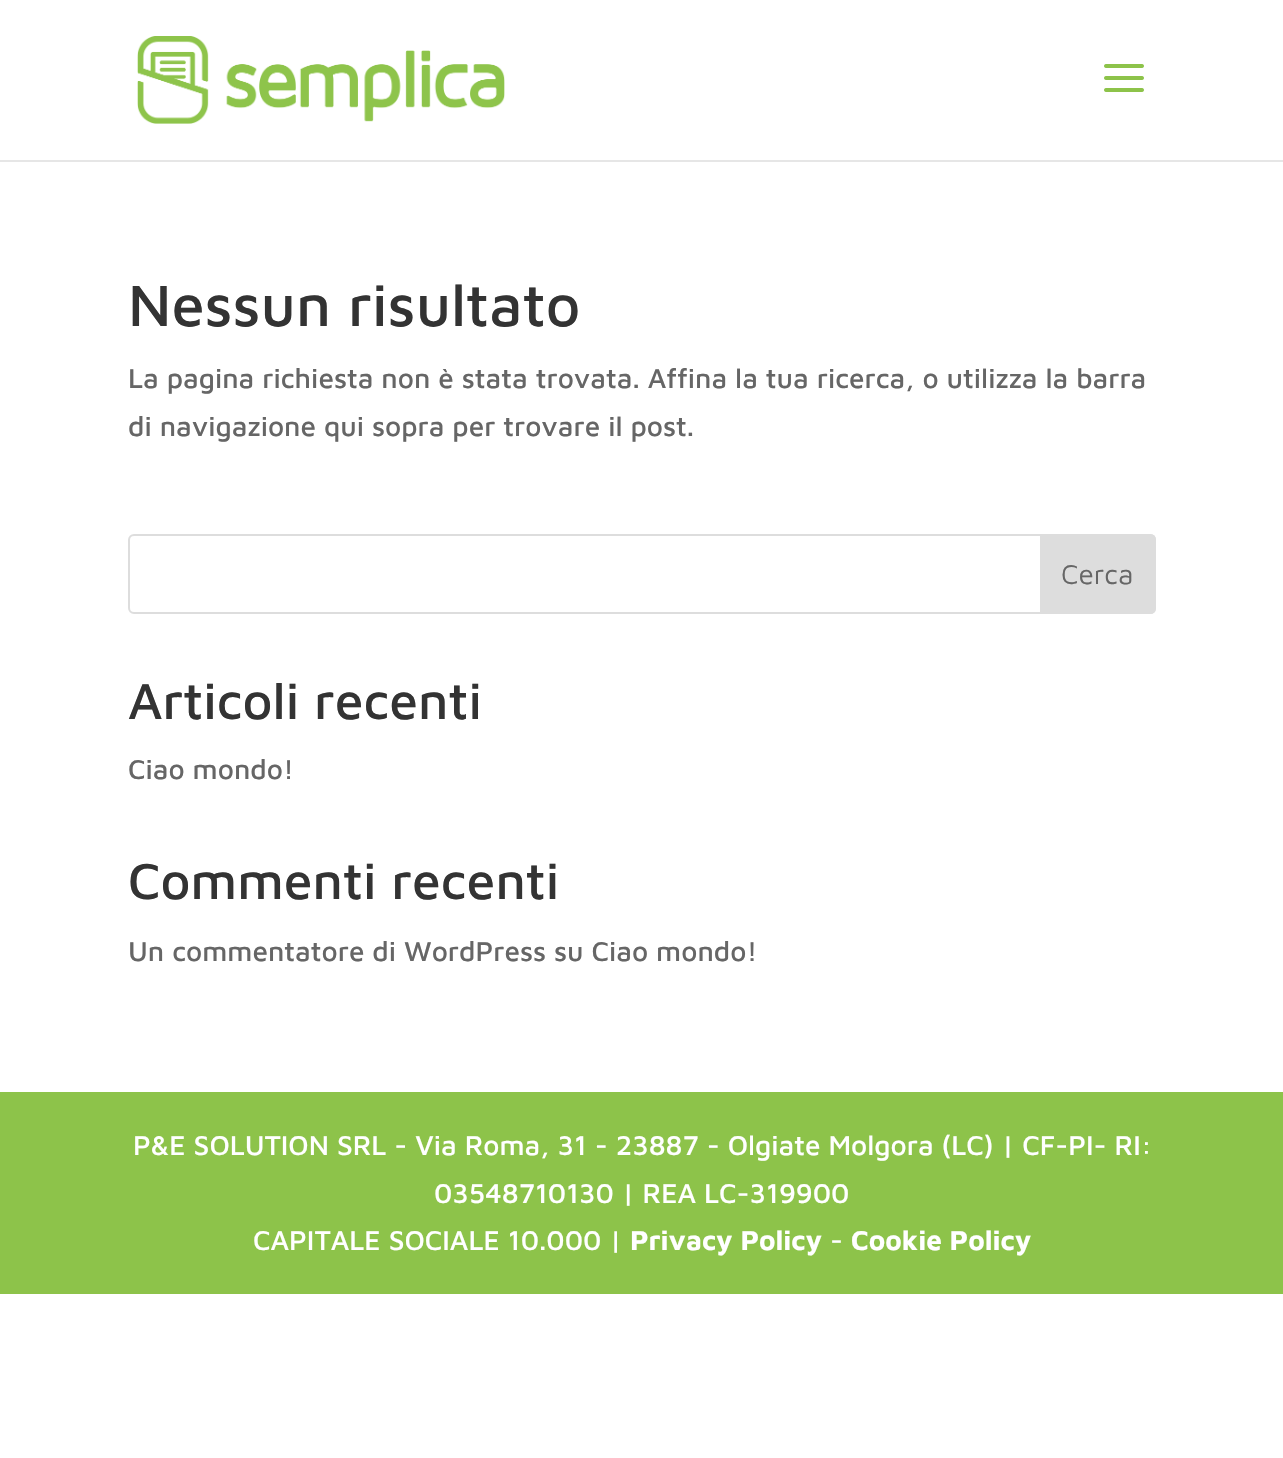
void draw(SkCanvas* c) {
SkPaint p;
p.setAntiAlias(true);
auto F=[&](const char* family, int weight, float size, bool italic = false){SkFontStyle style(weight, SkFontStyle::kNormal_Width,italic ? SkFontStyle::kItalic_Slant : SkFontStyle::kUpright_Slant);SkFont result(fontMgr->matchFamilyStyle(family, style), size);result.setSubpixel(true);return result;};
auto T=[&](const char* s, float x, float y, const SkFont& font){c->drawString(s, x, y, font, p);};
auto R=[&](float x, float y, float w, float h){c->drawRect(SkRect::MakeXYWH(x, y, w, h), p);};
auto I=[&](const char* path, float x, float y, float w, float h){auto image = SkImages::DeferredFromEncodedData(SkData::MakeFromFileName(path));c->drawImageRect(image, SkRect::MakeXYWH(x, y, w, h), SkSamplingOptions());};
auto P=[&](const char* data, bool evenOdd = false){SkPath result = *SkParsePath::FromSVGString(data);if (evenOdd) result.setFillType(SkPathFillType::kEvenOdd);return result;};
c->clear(0xffffffff);
p.setColor(0xffe6e6e6);
R(0,160,1283,2);
I("1.png",137,36,368,88);
I("2.png",1104,64,40,28);
auto f1 = F("Maven Pro",500,60);
p.setColor(0xff333333);
T("Nessun risultato",128,326,f1);
auto f2 = F("Maven Pro",500,28);
p.setColor(0xff666666);
T("La pagina richiesta non è stata trovata. Affina la tua ricerca, o utilizza la barra",128,388,f2);
T("di navigazione qui sopra per trovare il post.",128,436,f2);
p.setStroke(true);
p.setStrokeWidth(2);
p.setColor(0xffdddddd);
c->drawRoundRect(SkRect::MakeXYWH(129,535,1026,78),5,5,p);
p.setStroke(false);
c->drawPath(P("M1041 535h109c3 0 5 2 5 5v68c0 3-2 5-5 5h-109z"),p);
p.setStroke(true);
c->drawPath(P("M1041 535h109c3 0 5 2 5 5v68c0 3-2 5-5 5h-109z"),p);
auto f3 = F("Maven Pro",400,28);
p.setStroke(false);
p.setColor(0xff666666);
T("Cerca",1061,584,f3);
auto f4 = F("Maven Pro",500,52);
p.setColor(0xff333333);
T("Articoli recenti",128,719,f4);
p.setColor(0xff666666);
T("Ciao mondo!",128,779,f2);
p.setColor(0xff333333);
T("Commenti recenti",128,899,f4);
p.setColor(0xff666666);
T("Un commentatore di WordPress su Ciao mondo!",128,961,f2);
p.setColor(0xff8dc34a);
R(0,1092,1283,202);
p.setColor(0xffffffff);
T("P&E SOLUTION SRL - Via Roma, 31 - 23887 - Olgiate Molgora (LC) | CF-PI- RI:",133,1155,f2);
T("03548710130 | REA LC-319900",434,1203,f2);
T("CAPITALE SOCIALE 10.000 |",253,1250,f2);
auto f5 = F("Maven Pro",700,28);
T("Privacy Policy",630,1250,f5);
T("-",830,1250,f2);
T("Cookie Policy",851,1250,f5);
}
